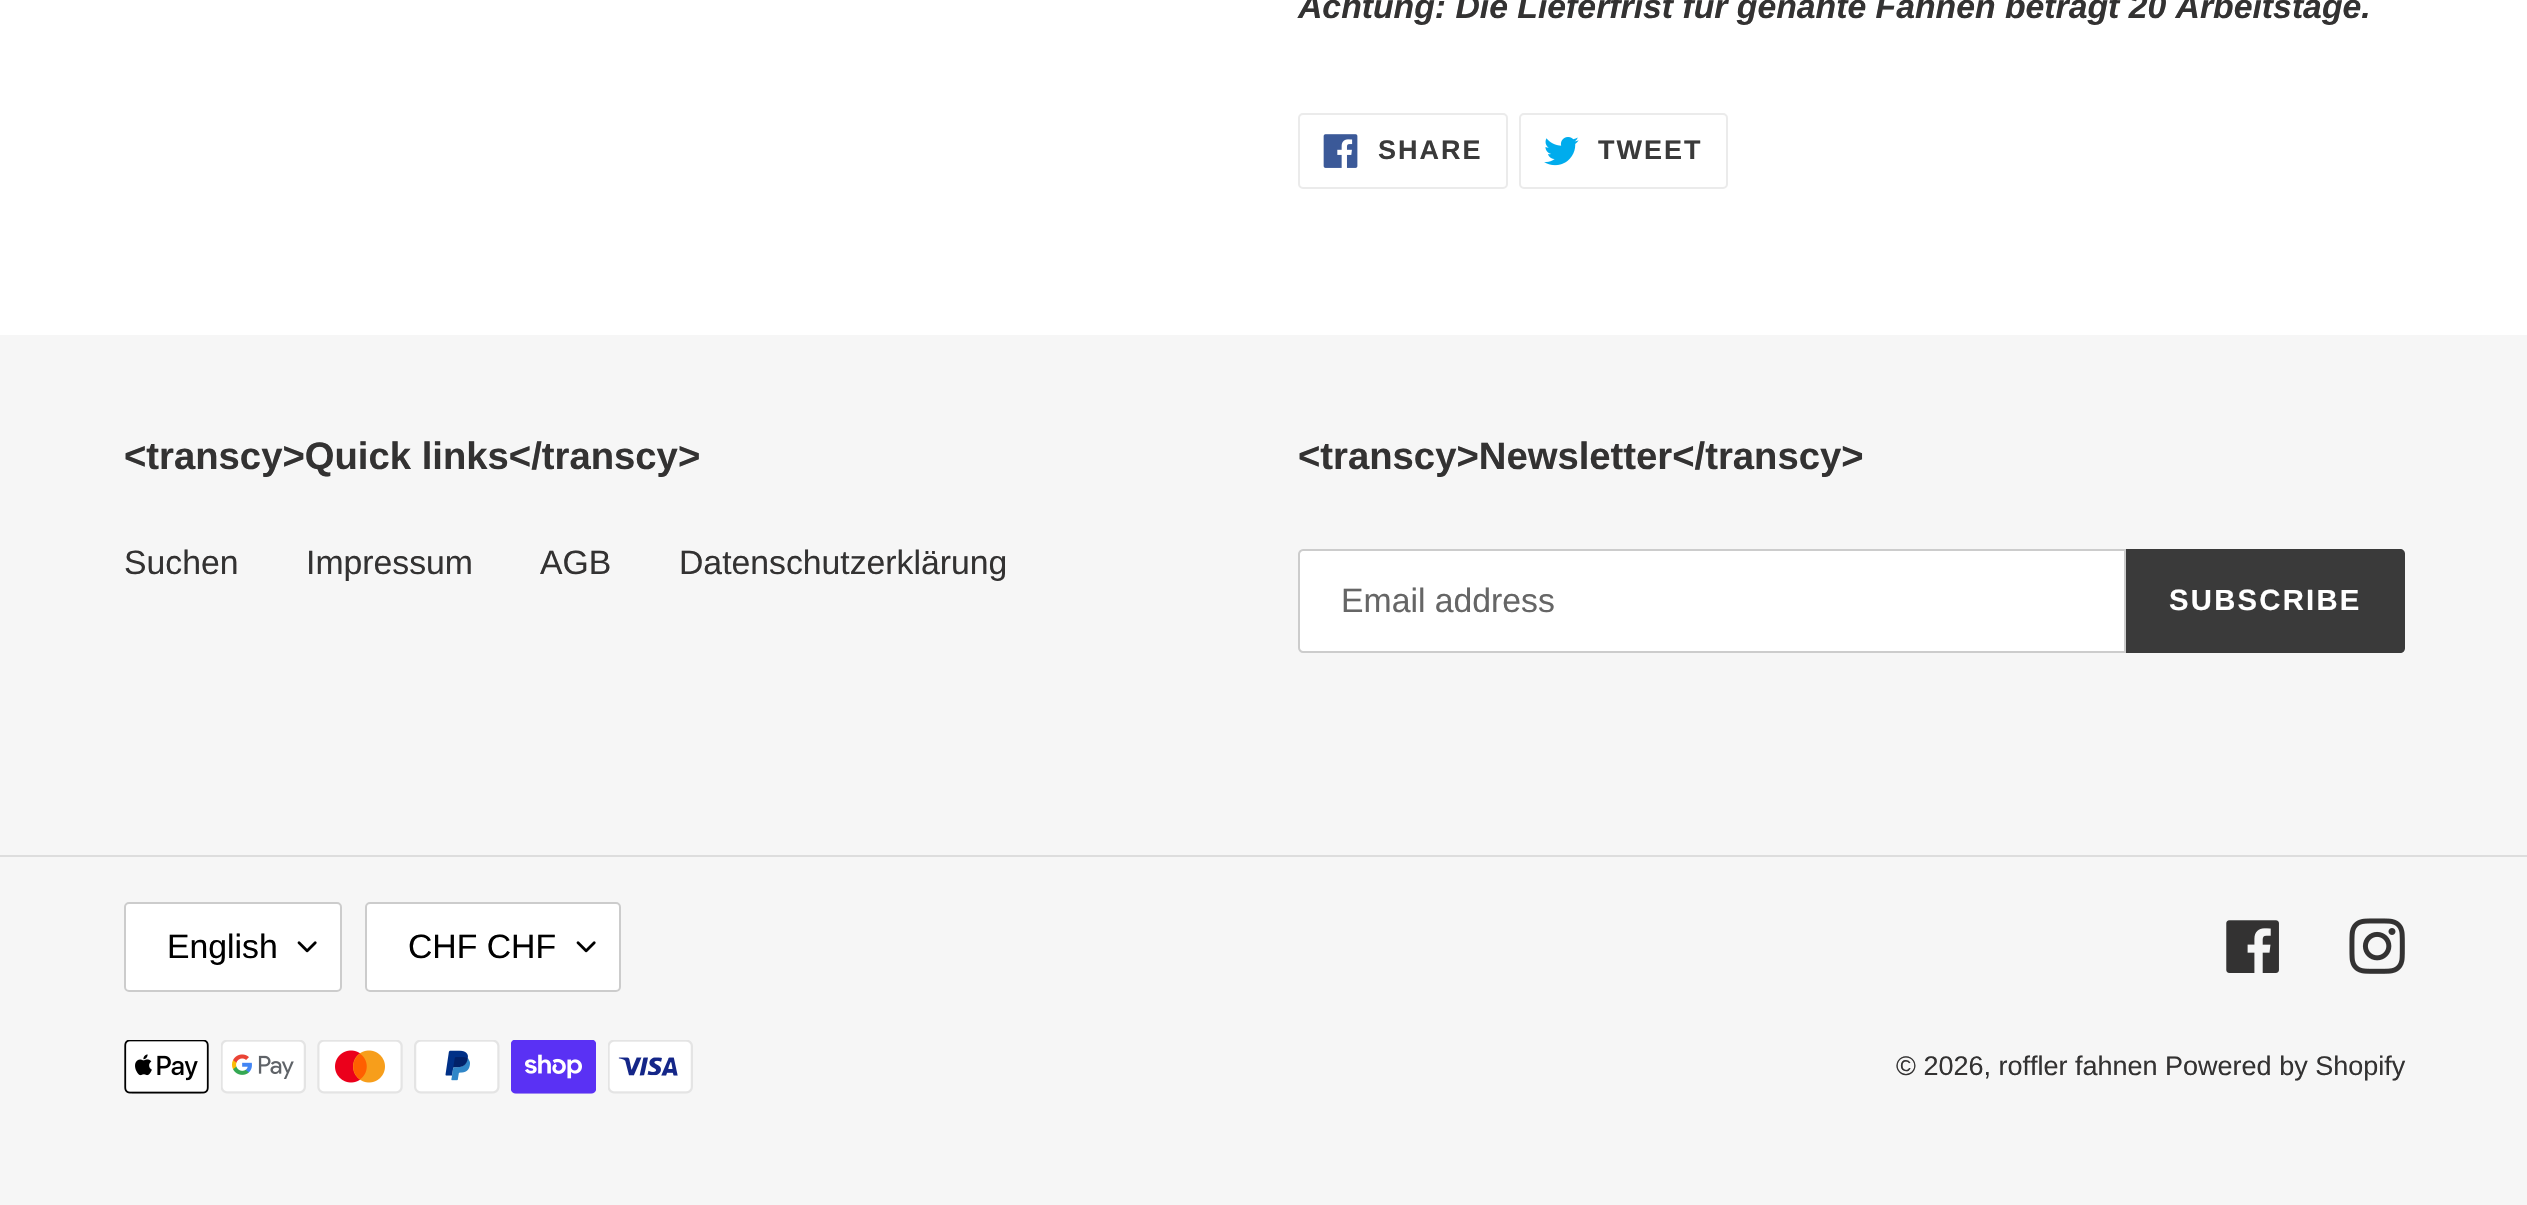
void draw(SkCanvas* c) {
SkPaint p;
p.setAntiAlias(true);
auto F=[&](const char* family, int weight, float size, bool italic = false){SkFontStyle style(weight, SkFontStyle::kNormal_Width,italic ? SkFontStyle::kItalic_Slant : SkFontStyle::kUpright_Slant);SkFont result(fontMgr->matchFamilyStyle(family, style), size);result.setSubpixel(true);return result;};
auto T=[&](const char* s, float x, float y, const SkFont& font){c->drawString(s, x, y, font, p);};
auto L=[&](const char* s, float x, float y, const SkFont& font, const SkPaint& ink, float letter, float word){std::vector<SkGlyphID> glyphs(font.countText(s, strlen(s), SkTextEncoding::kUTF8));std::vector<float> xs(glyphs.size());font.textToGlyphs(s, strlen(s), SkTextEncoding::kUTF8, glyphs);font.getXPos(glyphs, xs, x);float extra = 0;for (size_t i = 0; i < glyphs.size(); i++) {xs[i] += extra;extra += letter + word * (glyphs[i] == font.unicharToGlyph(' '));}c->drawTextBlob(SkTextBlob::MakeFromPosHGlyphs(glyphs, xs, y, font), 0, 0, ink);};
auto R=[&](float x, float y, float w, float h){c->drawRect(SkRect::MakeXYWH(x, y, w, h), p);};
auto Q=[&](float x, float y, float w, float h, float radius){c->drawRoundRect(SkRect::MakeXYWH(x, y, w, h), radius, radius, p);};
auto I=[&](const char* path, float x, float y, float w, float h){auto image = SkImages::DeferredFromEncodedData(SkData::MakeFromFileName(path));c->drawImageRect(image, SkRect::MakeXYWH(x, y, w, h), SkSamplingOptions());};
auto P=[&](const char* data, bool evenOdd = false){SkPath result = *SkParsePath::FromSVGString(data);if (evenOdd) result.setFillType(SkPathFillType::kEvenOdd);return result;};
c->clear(0xffffffff);
auto f1 = F("Liberation Sans",700,33.75,true);
p.setColor(0xff333232);
T("Achtung: Die Lieferfrist für genähte Fahnen beträgt 20 Arbeitstage.",1298,18,f1);
p.setStroke(true);
p.setStrokeWidth(2);
p.setColor(0xffebebeb);
c->drawRoundRect(SkRect::MakeXYWH(1299,114,208,74),4,4,p);
I("1.png",1323,134,35,34);
auto f2 = F("Liberation Sans",700,27);
p.setStroke(false);
p.setColor(0xff3a3a3a);
L("SHARE",1378,159,f2,p,2,0);
p.setStroke(true);
p.setColor(0xffebebeb);
c->drawRoundRect(SkRect::MakeXYWH(1520,114,207,74),4,4,p);
I("2.png",1544,137,35,29);
p.setStroke(false);
p.setColor(0xff3a3a3a);
L("TWEET",1598,159,f2,p,2,0);
p.setColor(0xfff6f6f6);
R(0,335,2527,870);
auto f3 = F("Liberation Sans",700,38.25);
p.setColor(0xff333232);
T("<transcy>Quick links</transcy>",124,469,f3);
auto f4 = F("Liberation Sans",400,33.75);
T("Suchen",124,574,f4);
T("Impressum",306,574,f4);
T("AGB",540,574,f4);
T("Datenschutzerklärung",679,574,f4);
T("<transcy>Newsletter</transcy>",1298,469,f3);
p.setColor(0xffffffff);
c->drawPath(P("M1303 550h822v102h-822c-2 0-4-2-4-4v-94c0-2 2-4 4-4z"),p);
p.setStroke(true);
p.setColor(0xffcccccc);
c->drawPath(P("M1303 550h822v102h-822c-2 0-4-2-4-4v-94c0-2 2-4 4-4z"),p);
p.setStroke(false);
p.setColor(0xff666666);
T("Email address",1341,612,f4);
p.setColor(0xff3a3a3a);
c->drawPath(P("M2126 549h274c3 0 5 2 5 5v94c0 3-2 5-5 5h-274z"),p);
auto f5 = F("Liberation Sans",700,29.25);
p.setColor(0xffffffff);
L("SUBSCRIBE",2169,610,f5,p,2.25,0);
p.setColor(0xffdddddd);
R(0,855,2527,2);
p.setColor(0xffffffff);
Q(124,902,218,90,5);
I("3.png",297,941,20,12);
p.setStroke(true);
p.setColor(0xffcccccc);
c->drawRoundRect(SkRect::MakeXYWH(125,903,216,88),4,4,p);
p.setStroke(false);
p.setColor(0xff000000);
T("English",167,958,f4);
p.setColor(0xffffffff);
Q(365,902,256,90,5);
I("3.png",576,941,20,12);
p.setStroke(true);
p.setColor(0xffcccccc);
c->drawRoundRect(SkRect::MakeXYWH(366,903,254,88),4,4,p);
p.setStroke(false);
p.setColor(0xff000000);
T("CHF CHF",408,958,f4);
I("4.png",2226,920,53,53);
I("5.png",2349,918,56,56);
I("6.png",124,1040,85,54);
I("7.png",221,1040,85,54);
I("8.png",317,1040,86,54);
I("9.png",414,1040,86,54);
I("10.png",511,1040,85,54);
I("11.png",608,1040,85,54);
auto f6 = F("Liberation Sans",400,27);
p.setColor(0xff333232);
T("© 2026, roffler fahnen Powered by Shopify",1896,1075,f6);
}
